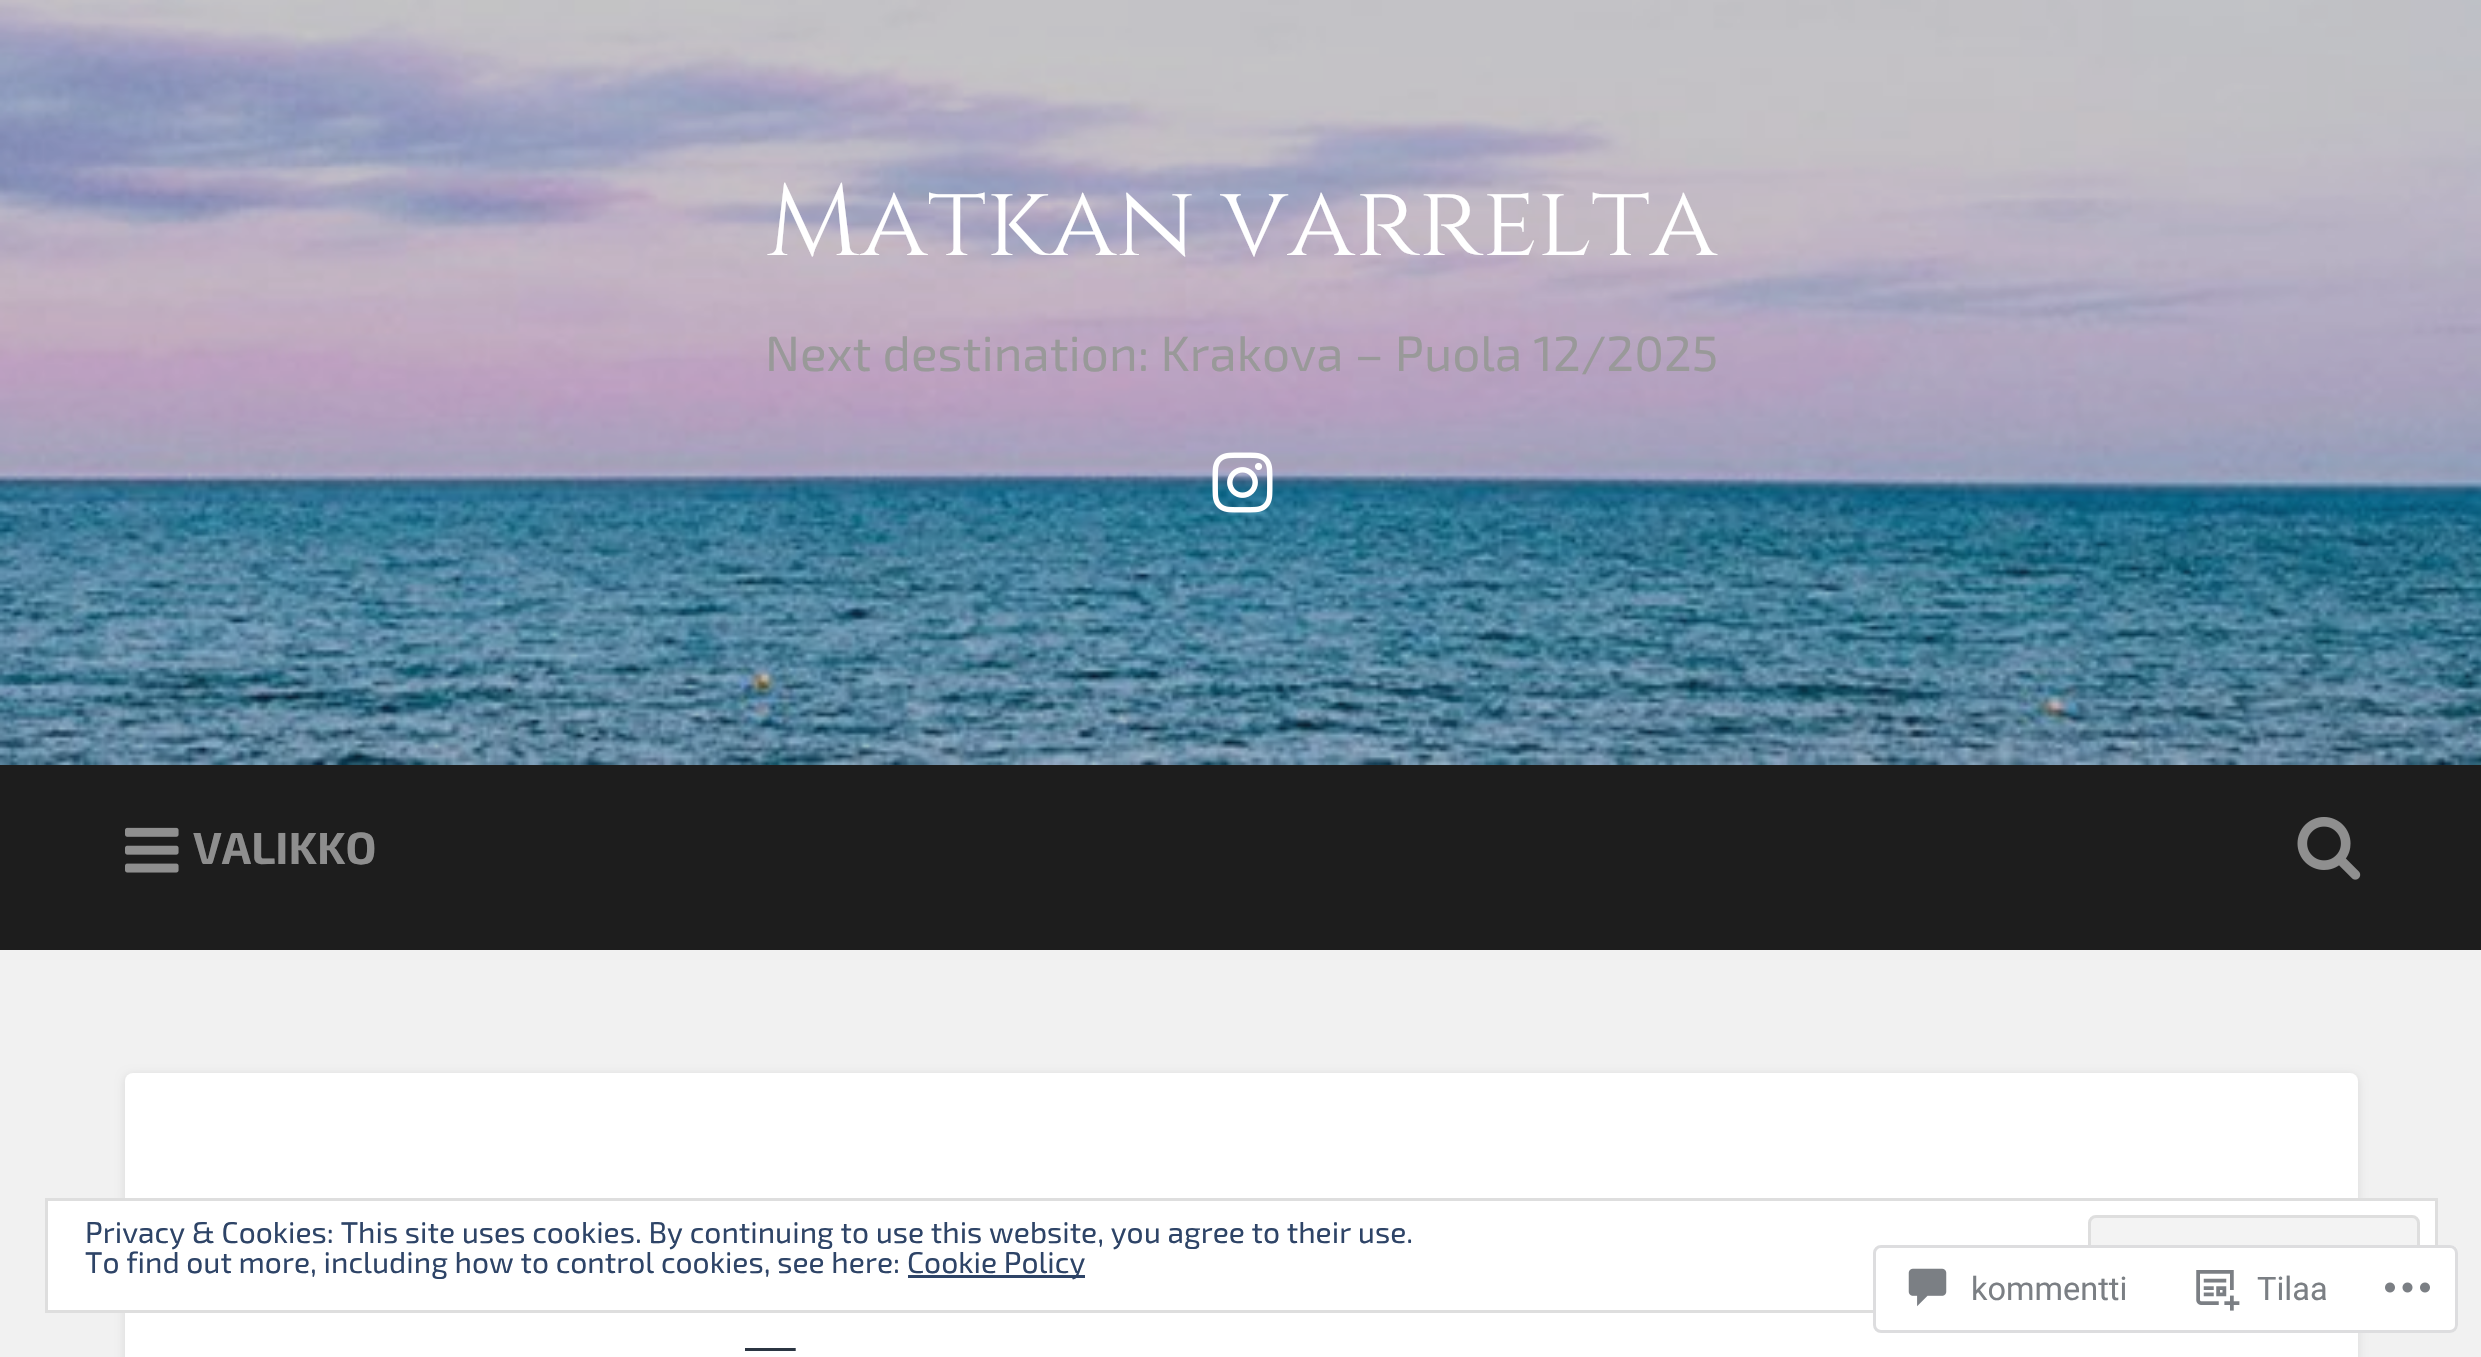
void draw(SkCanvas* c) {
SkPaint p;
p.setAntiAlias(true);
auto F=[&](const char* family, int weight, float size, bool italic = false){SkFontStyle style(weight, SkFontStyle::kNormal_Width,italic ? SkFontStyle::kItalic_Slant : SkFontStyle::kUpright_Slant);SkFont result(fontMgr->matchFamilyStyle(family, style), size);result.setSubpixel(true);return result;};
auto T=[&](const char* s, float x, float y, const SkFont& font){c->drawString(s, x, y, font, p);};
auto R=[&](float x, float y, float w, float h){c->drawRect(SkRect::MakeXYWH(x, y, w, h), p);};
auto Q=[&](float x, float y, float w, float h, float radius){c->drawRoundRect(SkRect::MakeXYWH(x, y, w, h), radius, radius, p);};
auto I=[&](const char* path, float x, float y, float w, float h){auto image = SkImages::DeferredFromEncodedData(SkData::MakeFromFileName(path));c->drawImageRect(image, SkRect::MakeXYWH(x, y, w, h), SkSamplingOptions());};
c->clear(0xfff1f1f1);
I("1.png",0,0,2481,765);
auto f1 = F("Cinzel",400,101.25);
p.setColor(0xffffffff);
T("Matkan varrelta",766,255,f1);
auto f2 = F("Exo 2",400,49.5);
p.setColor(0xff999999);
T("Next destination: Krakova – Puola 12/2025",765,371,f2);
I("2.png",1212,452,61,61);
p.setColor(0xff1d1d1d);
R(0,765,2481,185);
I("3.png",125,827,54,46);
auto f3 = F("Exo 2",700,45);
p.setColor(0xff8e8e8e);
T("VALIKKO",193,864,f3);
I("4.png",2297,817,64,63);
p.setColor(0x1a000000);
p.setMaskFilter(SkMaskFilter::MakeBlur(kNormal_SkBlurStyle, 5));
c->drawRoundRect(SkRect::MakeXYWH(125,1075,2233,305),8,8,p);
p.setMaskFilter(nullptr);
p.setColor(0xffffffff);
Q(125,1073,2233,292,8);
c->drawRect(SkRect::MakeXYWH(46.5,1199.5,2390,112),p);
p.setStroke(true);
p.setStrokeWidth(3);
p.setColor(0xffdedede);
c->drawRect(SkRect::MakeXYWH(46.5,1199.5,2390,112),p);
auto f4 = F("Exo 2",400,30);
p.setStroke(false);
p.setColor(0xff2e4467);
T("Privacy & Cookies: This site uses cookies. By continuing to use this website, you agree to their use.",85,1243,f4);
p.setColor(0xfff3f3f3);
c->drawRoundRect(SkRect::MakeXYWH(2089.5,1216.5,329,77),6.5,6.5,p);
p.setStroke(true);
p.setColor(0xffdedede);
c->drawRoundRect(SkRect::MakeXYWH(2089.5,1216.5,329,77),6.5,6.5,p);
p.setStroke(false);
p.setColor(0xff2e4467);
T("To find out more, including how to control cookies, see here:",85,1273,f4);
R(908,1275,177,3);
T("Cookie Policy",907,1273,f4);
p.setColor(0xfaffffff);
Q(1873,1245,585,88,8);
p.setStroke(true);
p.setColor(0xfadcdcde);
c->drawRoundRect(SkRect::MakeXYWH(1874.5,1246.5,582,85),6.5,6.5,p);
I("5.png",1908,1268,39,39);
auto f5 = F("Roboto",400,32.5);
p.setStroke(false);
p.setColor(0xff7b7f84);
T("kommentti",1971,1300,f5);
I("6.png",2196,1270,44,41);
T("Tilaa",2257,1300,f5);
I("7.png",2385,1282,45,11);
p.setColor(0xff2b3542);
T("_",745,1342,f1);
}
